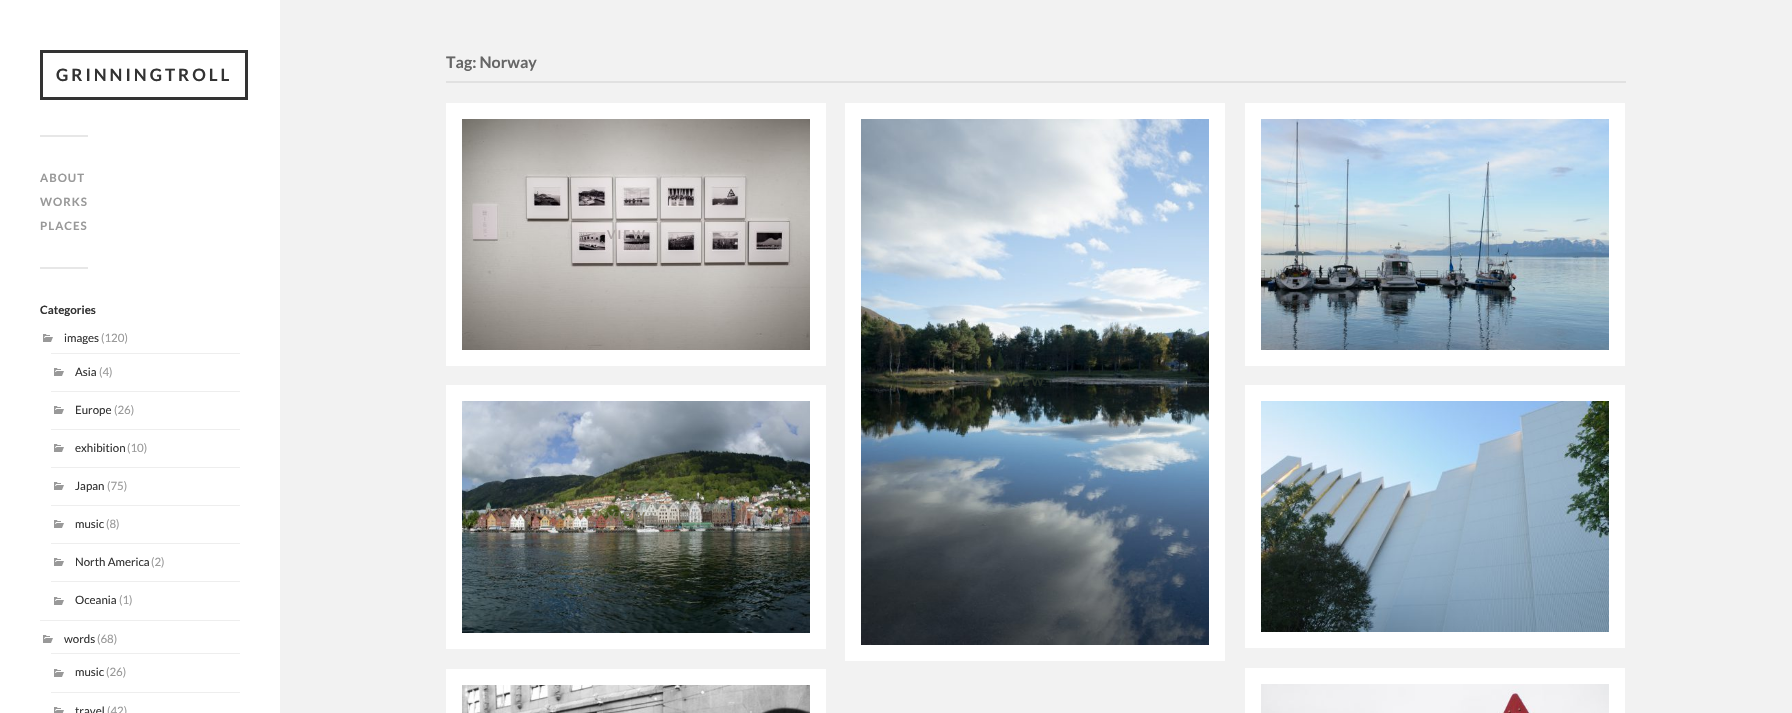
void draw(SkCanvas* c) {
SkPaint p;
p.setAntiAlias(true);
auto F=[&](const char* family, int weight, float size, bool italic = false){SkFontStyle style(weight, SkFontStyle::kNormal_Width,italic ? SkFontStyle::kItalic_Slant : SkFontStyle::kUpright_Slant);SkFont result(fontMgr->matchFamilyStyle(family, style), size);result.setSubpixel(true);return result;};
auto T=[&](const char* s, float x, float y, const SkFont& font){c->drawString(s, x, y, font, p);};
auto L=[&](const char* s, float x, float y, const SkFont& font, const SkPaint& ink, float letter, float word){std::vector<SkGlyphID> glyphs(font.countText(s, strlen(s), SkTextEncoding::kUTF8));std::vector<float> xs(glyphs.size());font.textToGlyphs(s, strlen(s), SkTextEncoding::kUTF8, glyphs);font.getXPos(glyphs, xs, x);float extra = 0;for (size_t i = 0; i < glyphs.size(); i++) {xs[i] += extra;extra += letter + word * (glyphs[i] == font.unicharToGlyph(' '));}c->drawTextBlob(SkTextBlob::MakeFromPosHGlyphs(glyphs, xs, y, font), 0, 0, ink);};
auto R=[&](float x, float y, float w, float h){c->drawRect(SkRect::MakeXYWH(x, y, w, h), p);};
auto I=[&](const char* path, float x, float y, float w, float h){auto image = SkImages::DeferredFromEncodedData(SkData::MakeFromFileName(path));c->drawImageRect(image, SkRect::MakeXYWH(x, y, w, h), SkSamplingOptions());};
c->clear(0xfff2f2f2);
p.setColor(0xffffffff);
R(0,0,280,713);
p.setStroke(true);
p.setStrokeWidth(3);
p.setColor(0xff333333);
c->drawRect(SkRect::MakeXYWH(41.5,51.5,205,47),p);
auto f1 = F("Lato",700,17);
p.setStroke(false);
L("GRINNINGTROLL",56,81,f1,p,3,0);
p.setColor(0xffe7e7e7);
R(40,135,48,2);
auto f2 = F("Lato",700,11.5);
p.setColor(0xff999999);
L("ABOUT",40,182,f2,p,1,0);
L("WORKS",40,206,f2,p,1,0);
L("PLACES",40,230,f2,p,1,0);
p.setColor(0xffe7e7e7);
R(40,267,48,2);
p.setColor(0xff333333);
T("Categories",40,314,f2);
p.setColor(0xffeeeeee);
R(40,620,200,1);
I("1.png",43,334,10,8);
auto f3 = F("Lato",400,11.5);
p.setColor(0xff333333);
T("images",64,342,f3);
p.setColor(0xff999999);
T("(120)",101,342,f3);
p.setColor(0xffeeeeee);
R(51,353,189,1);
R(51,391,189,1);
I("1.png",54,368,10,8);
p.setColor(0xff333333);
T("Asia",75,376,f3);
p.setColor(0xff999999);
T("(4)",99,376,f3);
p.setColor(0xffeeeeee);
R(51,429,189,1);
I("1.png",54,406,10,8);
p.setColor(0xff333333);
T("Europe",75,414,f3);
p.setColor(0xff999999);
T("(26)",114,414,f3);
p.setColor(0xffeeeeee);
R(51,467,189,1);
I("1.png",54,444,10,8);
p.setColor(0xff333333);
T("exhibition",75,452,f3);
p.setColor(0xff999999);
T("(10)",127,452,f3);
p.setColor(0xffeeeeee);
R(51,505,189,1);
I("1.png",54,482,10,8);
p.setColor(0xff333333);
T("Japan",75,490,f3);
p.setColor(0xff999999);
T("(75)",107,490,f3);
p.setColor(0xffeeeeee);
R(51,543,189,1);
I("1.png",54,520,10,8);
p.setColor(0xff333333);
T("music",75,528,f3);
p.setColor(0xff999999);
T("(8)",106,528,f3);
p.setColor(0xffeeeeee);
R(51,581,189,1);
I("1.png",54,558,10,8);
p.setColor(0xff333333);
T("North America",75,566,f3);
p.setColor(0xff999999);
T("(2)",151,566,f3);
I("1.png",54,597,10,8);
p.setColor(0xff333333);
T("Oceania",75,604,f3);
p.setColor(0xff999999);
T("(1)",119,604,f3);
I("1.png",43,635,10,8);
p.setColor(0xff333333);
T("words",64,643,f3);
p.setColor(0xff999999);
T("(68)",97,643,f3);
p.setColor(0xffeeeeee);
R(51,653,189,1);
R(51,692,189,1);
I("1.png",54,669,10,8);
p.setColor(0xff333333);
T("music",75,676,f3);
p.setColor(0xff999999);
T("(26)",106,676,f3);
I("2.png",54,707,10,6);
p.setColor(0xff333333);
T("travel",75,715,f3);
p.setColor(0xff999999);
T("(42)",107,715,f3);
p.setColor(0xffe1e1e1);
R(446,81,1180,2);
auto f4 = F("Lato",700,16);
p.setColor(0xff666666);
T("Tag: Norway",446,68,f4);
p.setColor(0xffffffff);
R(446,103,380,263);
I("3.png",462,119,348,231);
auto f5 = F("Lato",700,12);
p.setColor(0xffaea6a7);
L("VIEW",607,239,f5,p,2,0);
p.setColor(0xffffffff);
R(1245,103,380,263);
I("4.png",1261,119,348,231);
R(845,103,380,558);
I("5.png",861,119,348,526);
p.setColor(0xff273027);
L("VIEW",1006,386,f5,p,2,0);
p.setColor(0xffffffff);
R(446,385,380,264);
I("6.png",462,401,348,232);
p.setColor(0xff7d7860);
L("VIEW",607,521,f5,p,2,0);
auto f6 = F("Liberation Sans",700,12);
p.setColor(0xff9e968c);
L("→",651,521,f6,p,2,0);
p.setColor(0xffffffff);
R(1245,385,380,263);
I("7.png",1261,401,348,231);
R(446,669,380,44);
I("8.png",462,685,348,28);
R(1245,668,380,45);
I("9.png",1261,684,348,29);
}
